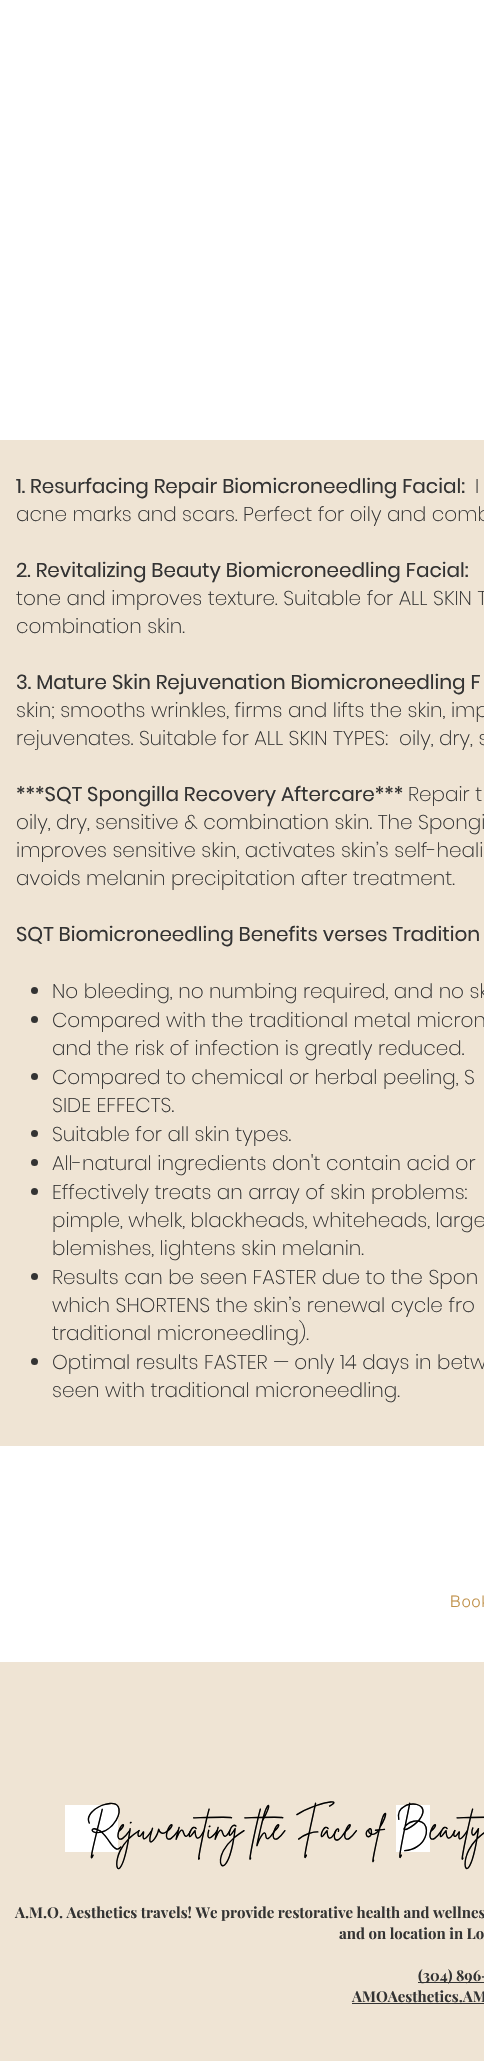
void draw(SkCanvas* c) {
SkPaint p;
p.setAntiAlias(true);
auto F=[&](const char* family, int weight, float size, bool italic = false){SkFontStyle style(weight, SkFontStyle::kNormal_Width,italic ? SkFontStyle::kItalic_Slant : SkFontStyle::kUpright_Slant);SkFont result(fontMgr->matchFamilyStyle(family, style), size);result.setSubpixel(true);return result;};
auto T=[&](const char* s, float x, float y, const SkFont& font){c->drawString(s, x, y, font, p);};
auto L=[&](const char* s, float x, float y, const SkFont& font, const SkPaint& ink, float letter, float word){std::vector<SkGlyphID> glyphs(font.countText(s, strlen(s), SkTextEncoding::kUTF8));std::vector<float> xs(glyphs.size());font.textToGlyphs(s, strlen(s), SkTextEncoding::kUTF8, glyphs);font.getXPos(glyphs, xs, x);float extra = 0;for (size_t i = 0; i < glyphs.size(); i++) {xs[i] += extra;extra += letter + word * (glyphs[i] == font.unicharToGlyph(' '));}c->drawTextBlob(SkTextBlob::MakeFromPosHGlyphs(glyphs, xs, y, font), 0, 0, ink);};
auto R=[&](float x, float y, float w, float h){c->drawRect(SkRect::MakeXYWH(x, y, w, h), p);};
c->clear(0xffefe4d4);
p.setColor(0xffffffff);
R(0,0,484,440);
auto f1 = F("Poppins",400,20);
p.setColor(0xff333333);
T("1. Resurfacing Repair Biomicroneedling Facial:",16,493,f1);
auto f2 = F("Poppins",200,20);
T("I",475,493,f2);
T("acne marks and scars. Perfect for oily and comb",16,521,f2);
T("2. Revitalizing Beauty Biomicroneedling Facial:",16,577,f1);
T("tone and improves texture. Suitable for ALL SKIN T",16,605,f2);
T("combination skin.",16,633,f2);
T("3. Mature Skin Rejuvenation Biomicroneedling F",16,689,f1);
T("skin; smooths wrinkles, firms and lifts the skin, imp",16,717,f2);
T("rejuvenates. Suitable for ALL SKIN TYPES:  oily, dry, s",16,745,f2);
T("***SQT Spongilla Recovery Aftercare***",16,801,f1);
T("Repair t",408,801,f2);
T("oily, dry, sensitive & combination skin. The Spongi",16,829,f2);
T("improves sensitive skin, activates skin’s self-heali",16,857,f2);
T("avoids melanin precipitation after treatment.",16,885,f2);
T("SQT Biomicroneedling Benefits verses Tradition",16,941,f1);
c->drawCircle(34.5,990.5,3.5,p);
T("No bleeding, no numbing required, and no sk",52,998,f2);
c->drawCircle(34.5,1019.5,3.5,p);
T("Compared with the traditional metal micron",52,1027,f2);
T("and the risk of infection is greatly reduced.",52,1055,f2);
c->drawCircle(34.5,1076.5,3.5,p);
T("Compared to chemical or herbal peeling, S",52,1084,f2);
T("SIDE EFFECTS.",52,1112,f2);
c->drawCircle(34.5,1133.5,3.5,p);
T("Suitable for all skin types.",52,1141,f2);
c->drawCircle(34.5,1162.5,3.5,p);
T("All-natural ingredients don't contain acid or",52,1170,f2);
c->drawCircle(34.5,1191.5,3.5,p);
T("Effectively treats an array of skin problems:",52,1199,f2);
T("pimple, whelk, blackheads, whiteheads, large",52,1227,f2);
T("blemishes, lightens skin melanin.",52,1255,f2);
c->drawCircle(34.5,1276.5,3.5,p);
T("Results can be seen FASTER due to the Spon",52,1284,f2);
T("which SHORTENS the skin’s renewal cycle fro",52,1312,f2);
T("traditional microneedling).",52,1340,f2);
c->drawCircle(34.5,1361.5,3.5,p);
T("Optimal results FASTER — only 14 days in betw",52,1369,f2);
T("seen with traditional microneedling.",52,1397,f2);
p.setColor(0xffffffff);
R(0,1446,484,216);
auto f3 = F("helvetica",300,16);
p.setColor(0xffc0914a);
L("Book",450,1607,f3,p,1,0);
p.setColor(0xffffffff);
R(65,1805,53,47);
auto f4 = F("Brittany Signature",400,35);
p.setColor(0xff000000);
T("Rejuvenating the Face of",86,1838,f4);
p.setColor(0xffffffff);
R(396,1805,34,47);
p.setColor(0xff000000);
T("Beauty",396,1838,f4);
auto f5 = F("Playfair Display",700,15);
p.setColor(0xff333333);
T("A.M.O. Aesthetics travels! We provide restorative health and wellnes",15,1918,f5);
T("and on location in Lo",339,1939,f5);
R(418,1982,66,1);
T("(304) 896-",418,1981,f5);
T("AMOAesthetics.AM",352,2002,f5);
R(352,2003,132,1);
}
